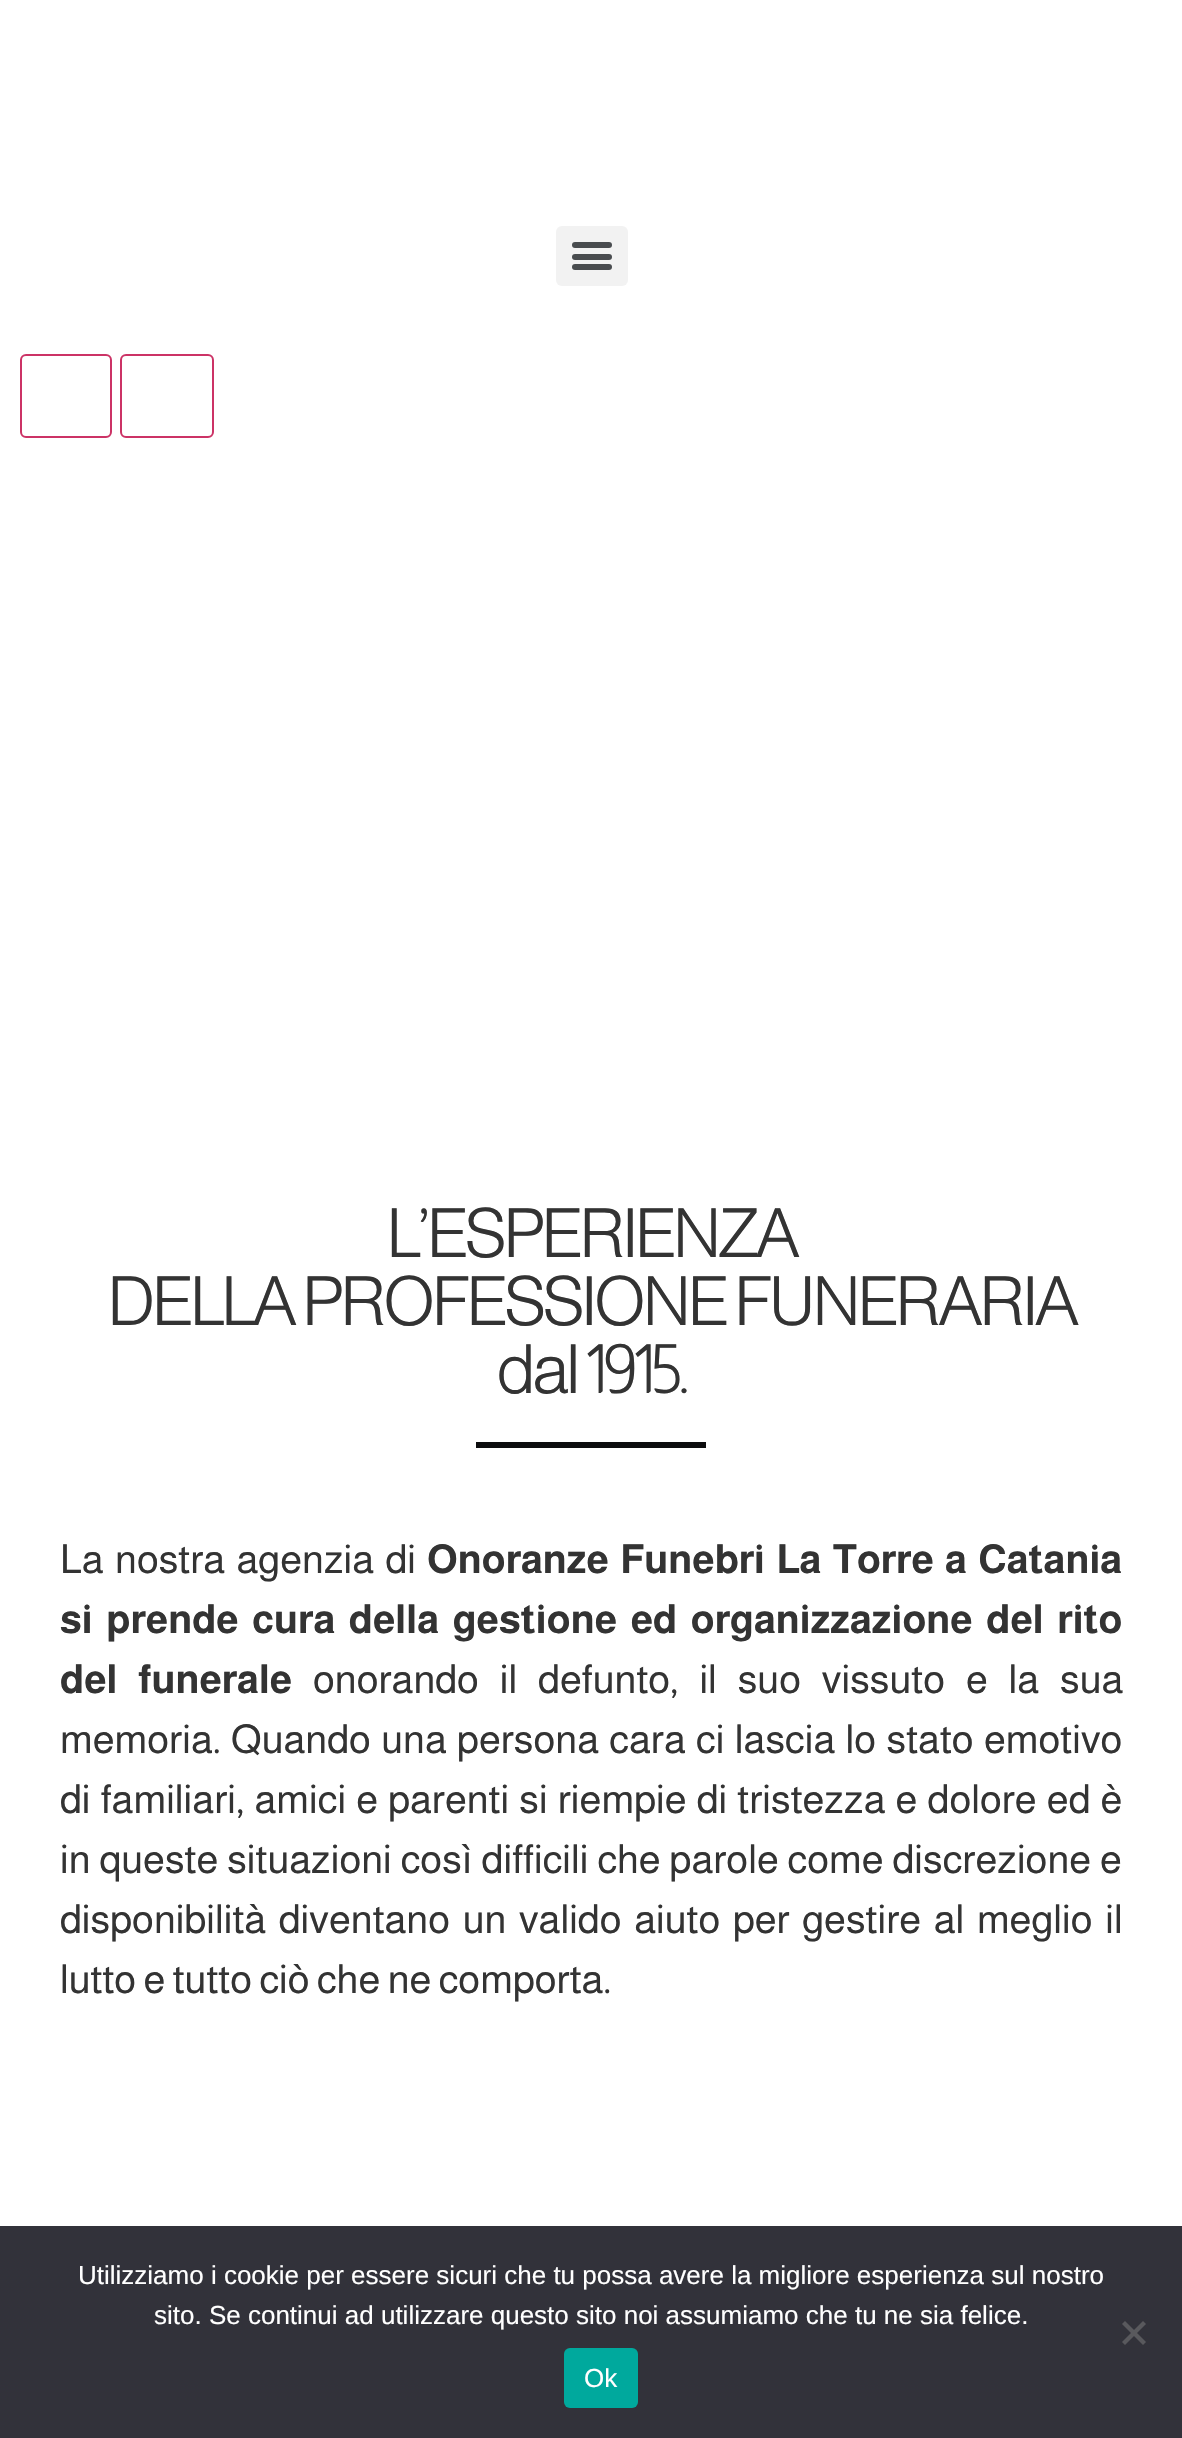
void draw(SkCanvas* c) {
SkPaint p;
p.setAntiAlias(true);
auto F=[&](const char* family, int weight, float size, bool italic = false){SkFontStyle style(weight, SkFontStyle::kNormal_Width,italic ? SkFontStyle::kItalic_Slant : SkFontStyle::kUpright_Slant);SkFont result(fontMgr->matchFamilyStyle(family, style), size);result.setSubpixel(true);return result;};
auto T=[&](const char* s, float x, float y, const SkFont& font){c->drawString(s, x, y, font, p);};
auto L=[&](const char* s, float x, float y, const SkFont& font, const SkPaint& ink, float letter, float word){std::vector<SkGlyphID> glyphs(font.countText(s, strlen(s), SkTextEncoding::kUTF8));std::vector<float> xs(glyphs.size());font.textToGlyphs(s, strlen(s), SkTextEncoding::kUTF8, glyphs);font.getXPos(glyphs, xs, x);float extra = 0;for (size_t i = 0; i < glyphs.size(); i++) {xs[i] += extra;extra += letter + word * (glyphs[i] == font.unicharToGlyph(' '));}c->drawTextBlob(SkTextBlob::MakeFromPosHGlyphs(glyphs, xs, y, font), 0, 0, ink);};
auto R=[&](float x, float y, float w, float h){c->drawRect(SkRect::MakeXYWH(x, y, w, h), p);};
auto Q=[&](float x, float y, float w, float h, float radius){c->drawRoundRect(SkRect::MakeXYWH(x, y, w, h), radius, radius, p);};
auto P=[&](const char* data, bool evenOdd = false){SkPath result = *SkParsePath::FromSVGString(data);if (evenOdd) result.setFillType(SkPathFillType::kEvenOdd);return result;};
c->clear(0xffffffff);
p.setColor(0xfff2f2f2);
Q(556,226,72,60,6);
p.setColor(0xff494c4f);
Q(572,254,40,6,3);
Q(572,242,40,6,3);
Q(572,264,40,6,3);
p.setStroke(true);
p.setStrokeWidth(2);
p.setColor(0xffcc3366);
c->drawRoundRect(SkRect::MakeXYWH(21,355,90,82),5,5,p);
c->drawRoundRect(SkRect::MakeXYWH(121,355,92,82),5,5,p);
auto f1 = F("Almarai",300,68);
p.setStroke(false);
p.setColor(0xff333333);
L("L’ESPERIENZA",386,1257,f1,p,-4,0);
L("DELLA PROFESSIONE FUNERARIA",107,1325,f1,p,-4,0);
L("dal 1915.",496,1393,f1,p,-4,0);
p.setColor(0xff0c0d0e);
R(476,1442,230,6);
auto f2 = F("Almarai",400,40);
p.setColor(0xff333333);
L("La nostra agenzia di",60,1573,f2,p,0,4);
auto f3 = F("Almarai",700,40);
L("Onoranze Funebri La Torre a Catania",427,1573,f3,p,0,4);
L("si prende cura della gestione ed organizzazione del rito",60,1633,f3,p,0,6.25);
L("del funerale",60,1693,f3,p,0,13.5);
L("onorando il defunto, il suo vissuto e la sua",313,1693,f2,p,0,13.5);
L("memoria. Quando una persona cara ci lascia lo stato emotivo",60,1753,f2,p,0,3);
L("di familiari, amici e parenti si riempie di tristezza e dolore ed è",60,1813,f2,p,0,2.75);
L("in queste situazioni così difficili che parole come discrezione e",60,1873,f2,p,0,1.5);
L("disponibilità diventano un valido aiuto per gestire al meglio il",60,1933,f2,p,0,5.25);
T("lutto e tutto ciò che ne comporta.",60,1993,f2);
p.setColor(0xff32323a);
R(0,2226,1182,212);
auto f4 = F("Liberation Sans",400,26);
p.setColor(0xffffffff);
T("Utilizziamo i cookie per essere sicuri che tu possa avere la migliore esperienza sul nostro",78,2284,f4);
T("sito. Se continui ad utilizzare questo sito noi assumiamo che tu ne sia felice.",154,2324,f4);
p.setColor(0xff59595d);
c->drawPath(P("M1143 2321l3 3l-21 21l-3-3z"),p);
c->drawPath(P("M1122 2324l3-3l21 21l-3 3z"),p);
p.setColor(0xff00a99d);
Q(564,2348,74,60,6);
p.setColor(0xffffffff);
T("Ok",584,2387,f4);
}
